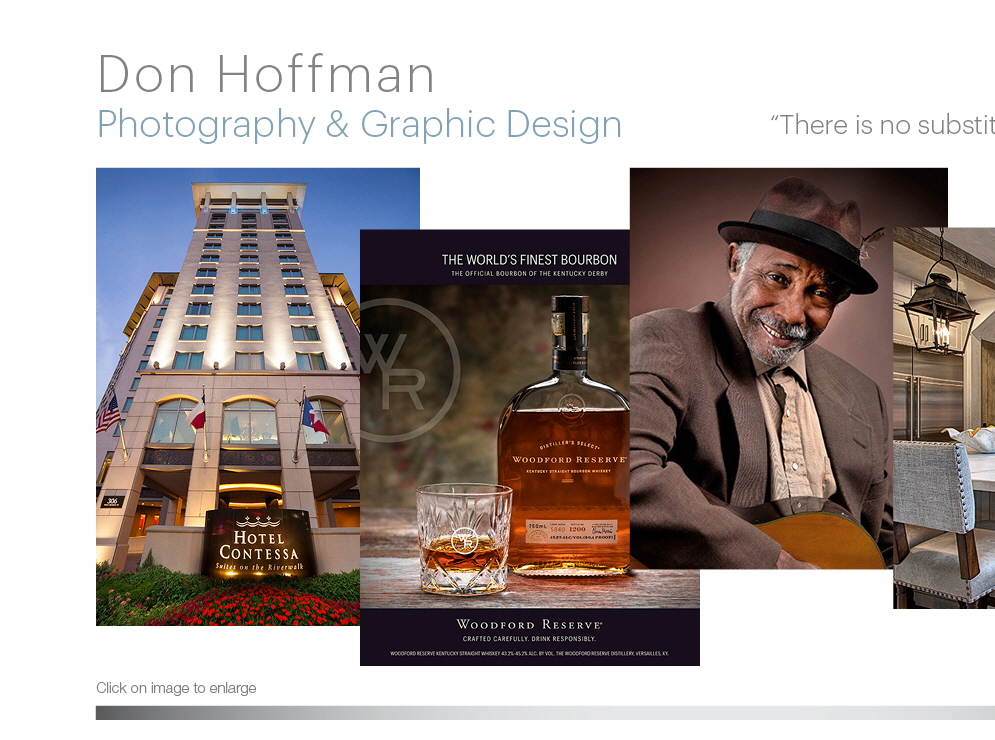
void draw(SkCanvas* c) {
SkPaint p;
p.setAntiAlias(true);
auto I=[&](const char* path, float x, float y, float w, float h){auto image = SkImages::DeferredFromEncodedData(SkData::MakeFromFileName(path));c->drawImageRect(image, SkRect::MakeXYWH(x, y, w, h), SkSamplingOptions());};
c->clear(0xffffffff);
I("1.png",95,48,900,672);
}
